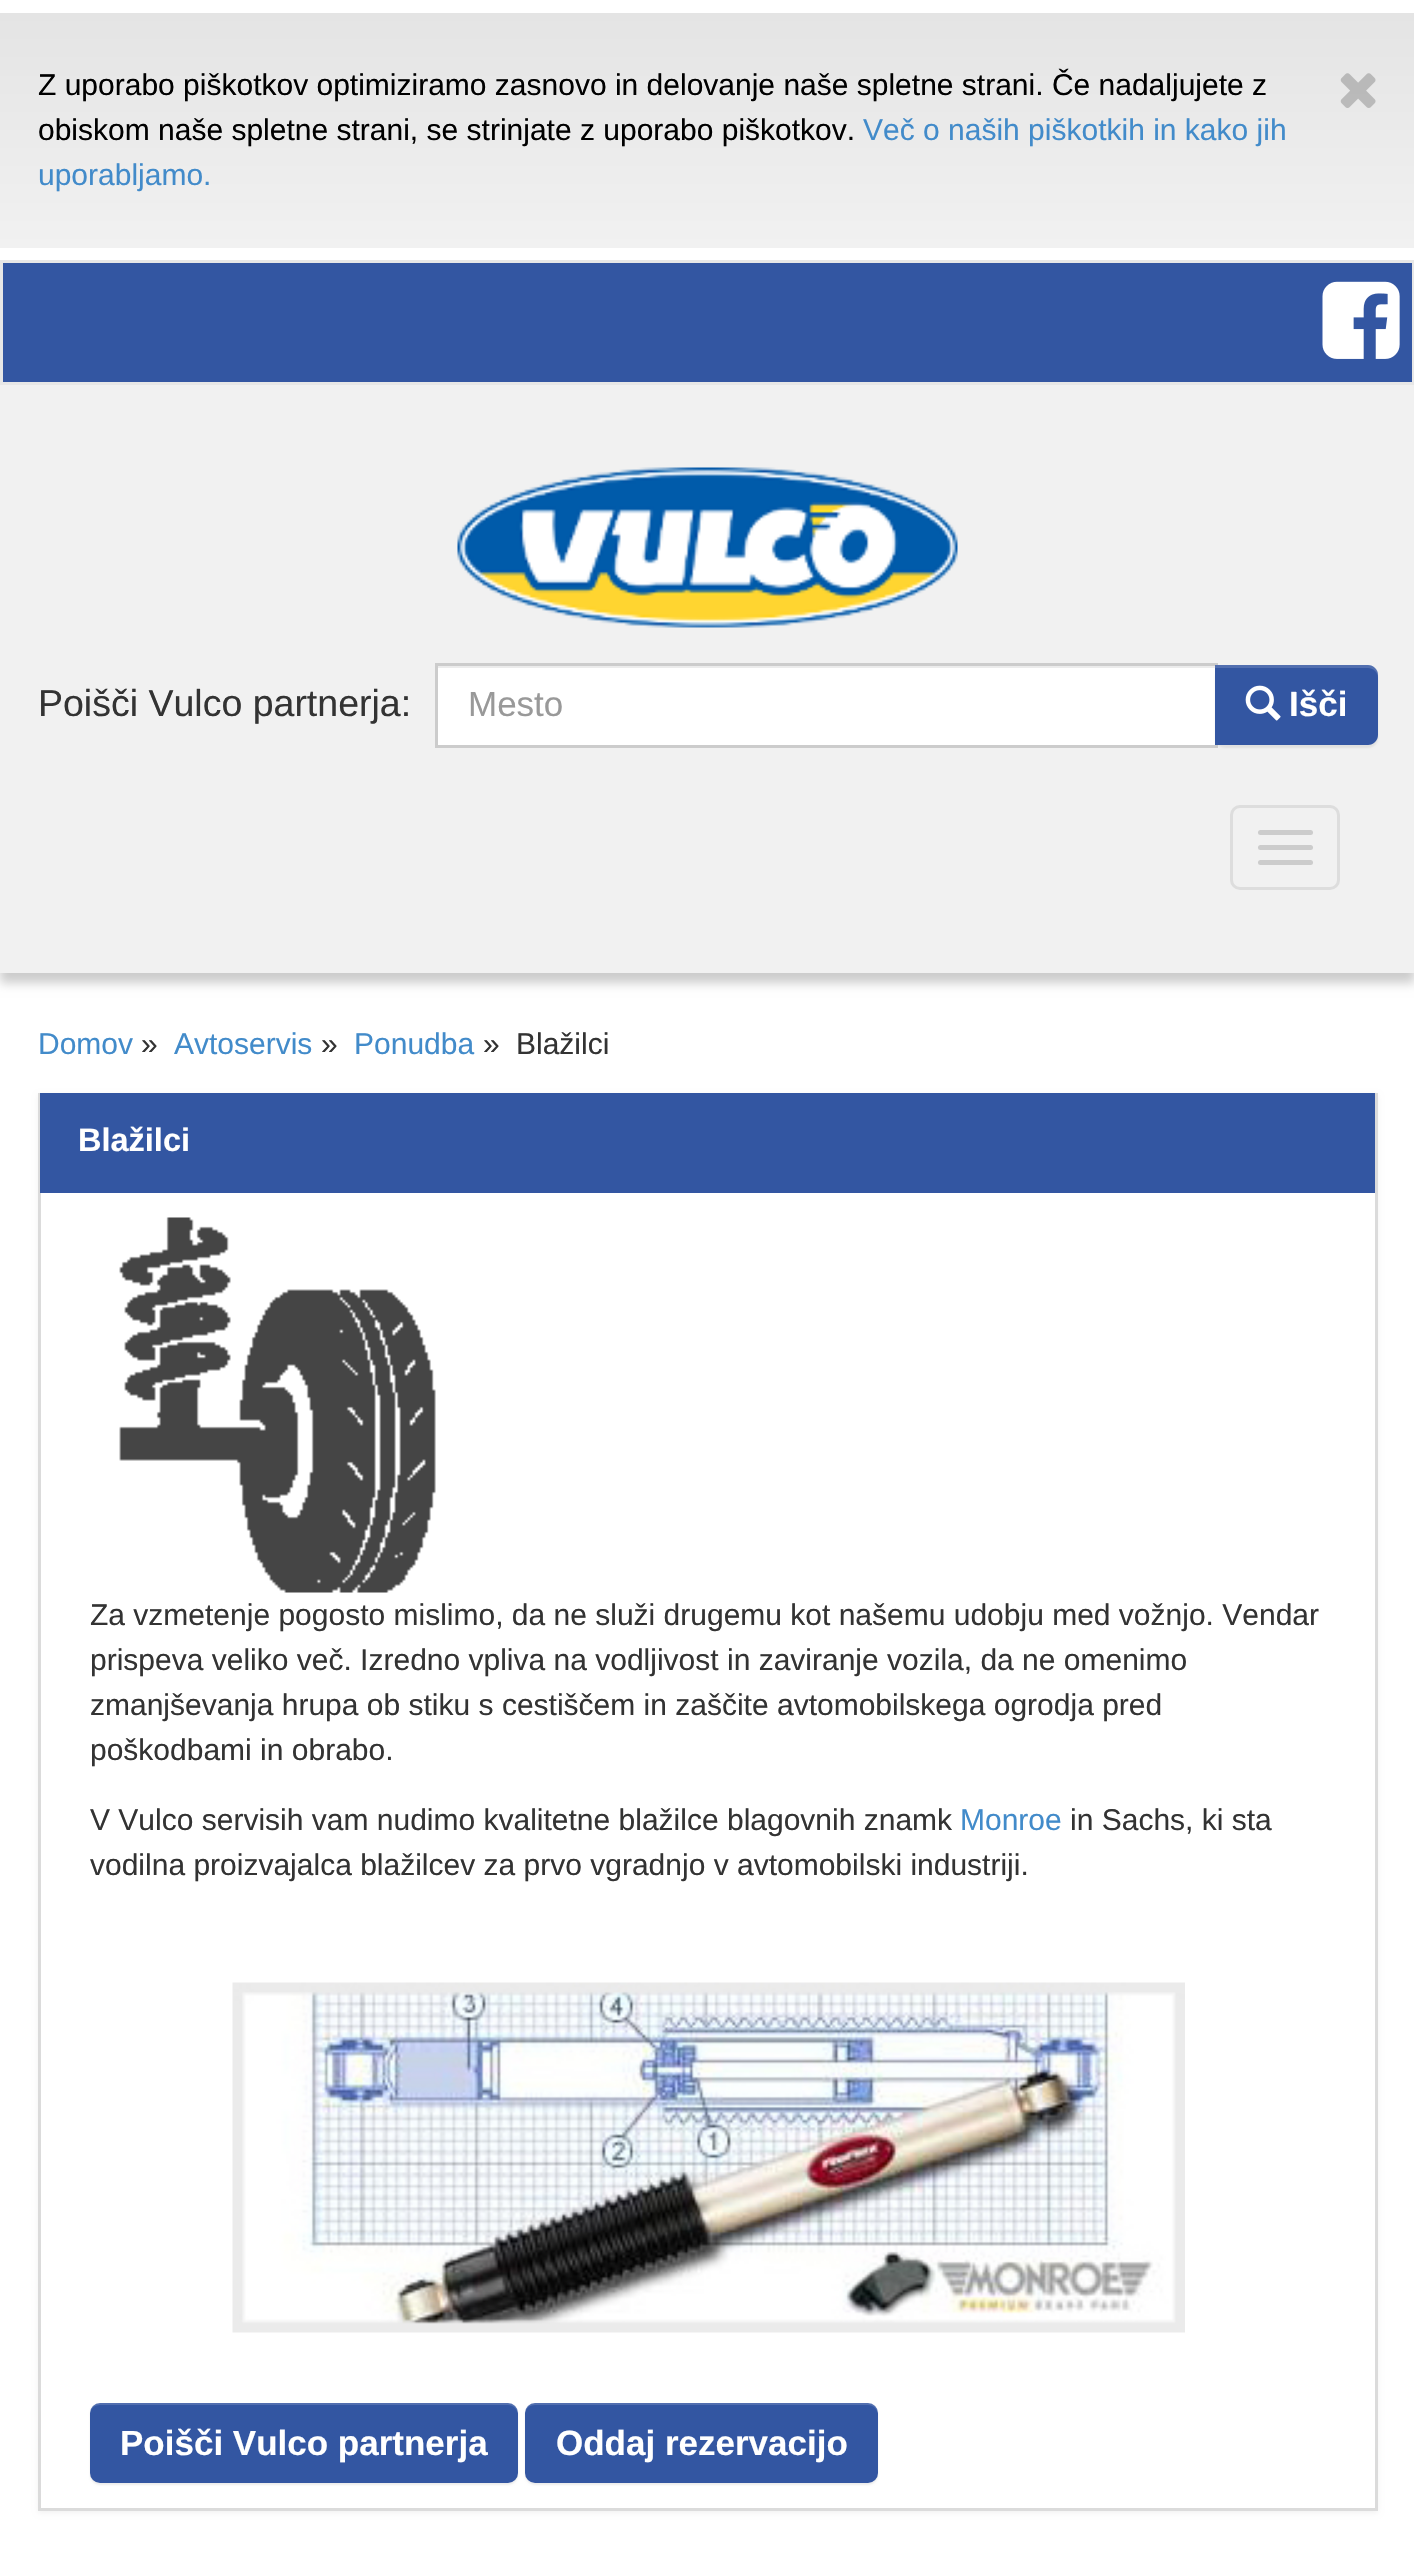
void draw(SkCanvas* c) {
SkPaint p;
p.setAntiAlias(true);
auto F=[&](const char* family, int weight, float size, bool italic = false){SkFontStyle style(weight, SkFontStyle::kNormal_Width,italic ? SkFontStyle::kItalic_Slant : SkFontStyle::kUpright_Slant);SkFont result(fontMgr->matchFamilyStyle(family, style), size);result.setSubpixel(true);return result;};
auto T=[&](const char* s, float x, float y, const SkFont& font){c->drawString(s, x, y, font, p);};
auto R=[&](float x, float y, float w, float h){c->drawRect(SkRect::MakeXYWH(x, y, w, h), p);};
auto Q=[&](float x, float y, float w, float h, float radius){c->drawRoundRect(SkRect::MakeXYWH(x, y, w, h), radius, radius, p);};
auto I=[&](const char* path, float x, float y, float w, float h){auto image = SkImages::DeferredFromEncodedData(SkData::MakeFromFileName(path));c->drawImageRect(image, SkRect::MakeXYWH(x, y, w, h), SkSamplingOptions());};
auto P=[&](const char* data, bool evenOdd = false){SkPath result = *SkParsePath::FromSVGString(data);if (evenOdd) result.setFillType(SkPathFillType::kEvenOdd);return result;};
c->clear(0xffffffff);
{
const SkColor colors[] = {0xffe4e4e4,0xfff1f1f1};
const float stops[] = {0,1};
const SkPoint ends[] = {{708,12}, {708,248}};
p.setShader(SkGradientShader::MakeLinear(ends, colors, stops, 2, SkTileMode::kClamp));
p.setAlpha(255);
}
R(0,13,1414,235);
auto f1 = F("Liberation Sans",400,30);
p.setShader(nullptr);
p.setColor(0xff000000);
T("Z uporabo piškotkov optimiziramo zasnovo in delovanje naše spletne strani. Če nadaljujete z",38,95,f1);
T("obiskom naše spletne strani, se strinjate z uporabo piškotkov.",38,140,f1);
p.setColor(0xff428bca);
T("Več o naših piškotkih in kako jih",863,140,f1);
T("uporabljamo.",38,185,f1);
I("1.png",1340,73,36,35);
p.setColor(0xffcccccc);
p.setMaskFilter(SkMaskFilter::MakeBlur(kNormal_SkBlurStyle, 5));
c->drawRect(SkRect::MakeXYWH(0,395,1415,588),p);
p.setMaskFilter(nullptr);
p.setColor(0xff3356a2);
c->drawRect(SkRect::MakeXYWH(1.5,261.5,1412,122),p);
p.setStroke(true);
p.setStrokeWidth(3);
p.setColor(0xffe7e7e7);
c->drawRect(SkRect::MakeXYWH(1.5,261.5,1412,122),p);
I("2.png",1322,281,78,78);
p.setStroke(false);
p.setColor(0xfff1f1f1);
R(0,385,1414,588);
I("3.png",457,467,501,161);
auto f2 = F("Liberation Sans",400,37.5);
p.setColor(0xff333333);
T("Poišči Vulco partnerja:",38,716,f2);
p.setColor(0xffffffff);
R(438,668,777,77);
p.setColor(0xffececec);
R(438,666,777,2);
p.setStroke(true);
p.setColor(0xffcccccc);
c->drawRect(SkRect::MakeXYWH(436.5,664.5,780,82),p);
auto f3 = F("Liberation Sans",400,35);
p.setStroke(false);
p.setColor(0xff999999);
T("Mesto",468,716,f3);
p.setColor(0x12000000);
p.setMaskFilter(SkMaskFilter::MakeBlur(kNormal_SkBlurStyle, 1));
c->drawRoundRect(SkRect::MakeXYWH(1215,668,163,80),10,10,p);
p.setMaskFilter(nullptr);
p.setColor(0xff3356a2);
c->drawPath(P("M1215 665h153c5.5 0 10 4.5 10 10v60c0 5.5-4.5 10-10 10h-153z"),p);
p.setColor(0x26ffffff);
c->drawPath(P("M1215 668h153c5 0 10 4 10 10v-3c0-6-4-10-10-10h-153z"),p);
I("4.png",1245,685,36,36);
auto f4 = F("Liberation Sans",700,35);
p.setColor(0xffffffff);
T("Išči",1289,716,f4);
p.setStroke(true);
p.setColor(0xffdddddd);
c->drawRoundRect(SkRect::MakeXYWH(1231.5,806.5,107,82),8.5,8.5,p);
p.setStroke(false);
p.setColor(0xffcccccc);
Q(1258,830,55,5,2.5);
Q(1258,845,55,5,2.5);
Q(1258,860,55,5,2.5);
p.setColor(0xff428bca);
T("Domov",38,1054,f1);
p.setColor(0xff333333);
T("»",141,1054,f1);
p.setColor(0xff428bca);
T("Avtoservis",174,1054,f1);
p.setColor(0xff333333);
T("»",321,1054,f1);
p.setColor(0xff428bca);
T("Ponudba",354,1054,f1);
p.setColor(0xff333333);
T("»",483,1054,f1);
T("Blažilci",516,1054,f1);
p.setColor(0x0d000000);
p.setMaskFilter(SkMaskFilter::MakeBlur(kNormal_SkBlurStyle, 2.5));
c->drawRect(SkRect::MakeXYWH(38,1095,1340,1418),p);
p.setMaskFilter(nullptr);
p.setColor(0xffffffff);
R(41,1193,1334,1315);
p.setColor(0xffdbdbdb);
R(1375,1093,3,1417);
R(38,2508,1340,3);
R(38,1093,3,1417);
p.setColor(0xff3356a2);
R(40,1093,1335,100);
auto f5 = F("Liberation Sans",700,32.5);
p.setColor(0xffffffff);
T("Blažilci",78,1151,f5);
I("5.png",119,1217,317,376);
p.setColor(0xff333333);
T("Za vzmetenje pogosto mislimo, da ne služi drugemu kot našemu udobju med vožnjo. Vendar",90,1625,f1);
T("prispeva veliko več. Izredno vpliva na vodljivost in zaviranje vozila, da ne omenimo",90,1670,f1);
T("zmanjševanja hrupa ob stiku s cestiščem in zaščite avtomobilskega ogrodja pred",90,1715,f1);
T("poškodbami in obrabo.",90,1760,f1);
T("V Vulco servisih vam nudimo kvalitetne blažilce blagovnih znamk",90,1830,f1);
p.setColor(0xff428bca);
T("Monroe",960,1830,f1);
p.setColor(0xff333333);
T("in Sachs, ki sta",1070,1830,f1);
T("vodilna proizvajalca blažilcev za prvo vgradnjo v avtomobilski industriji.",90,1875,f1);
I("6.png",232,1982,953,351);
p.setColor(0x12000000);
p.setMaskFilter(SkMaskFilter::MakeBlur(kNormal_SkBlurStyle, 1));
c->drawRoundRect(SkRect::MakeXYWH(90,2405,428,80),10,10,p);
p.setMaskFilter(nullptr);
p.setColor(0xff3356a2);
Q(90,2403,428,80,10);
p.setColor(0x26ffffff);
c->drawPath(P("M100 2405h408c5 0 10 4 10 10c0-6-3-12-10-12h-410c-6 1-8 7-8 12c0-6 4-10 10-10z"),p);
p.setColor(0xffffffff);
T("Poišči Vulco partnerja",120,2455,f4);
p.setColor(0x12000000);
p.setMaskFilter(SkMaskFilter::MakeBlur(kNormal_SkBlurStyle, 1));
c->drawRoundRect(SkRect::MakeXYWH(525,2405,353,80),10,10,p);
p.setMaskFilter(nullptr);
p.setColor(0xff3356a2);
Q(525,2403,353,80,10);
p.setColor(0x26ffffff);
c->drawPath(P("M535 2405h333c5 0 10 4 10 10c0-5-2-11-8-12h-335c-7 0-10 6-10 12c0-6 4-10 10-10z"),p);
p.setColor(0xffffffff);
T("Oddaj rezervacijo",556,2455,f4);
}
